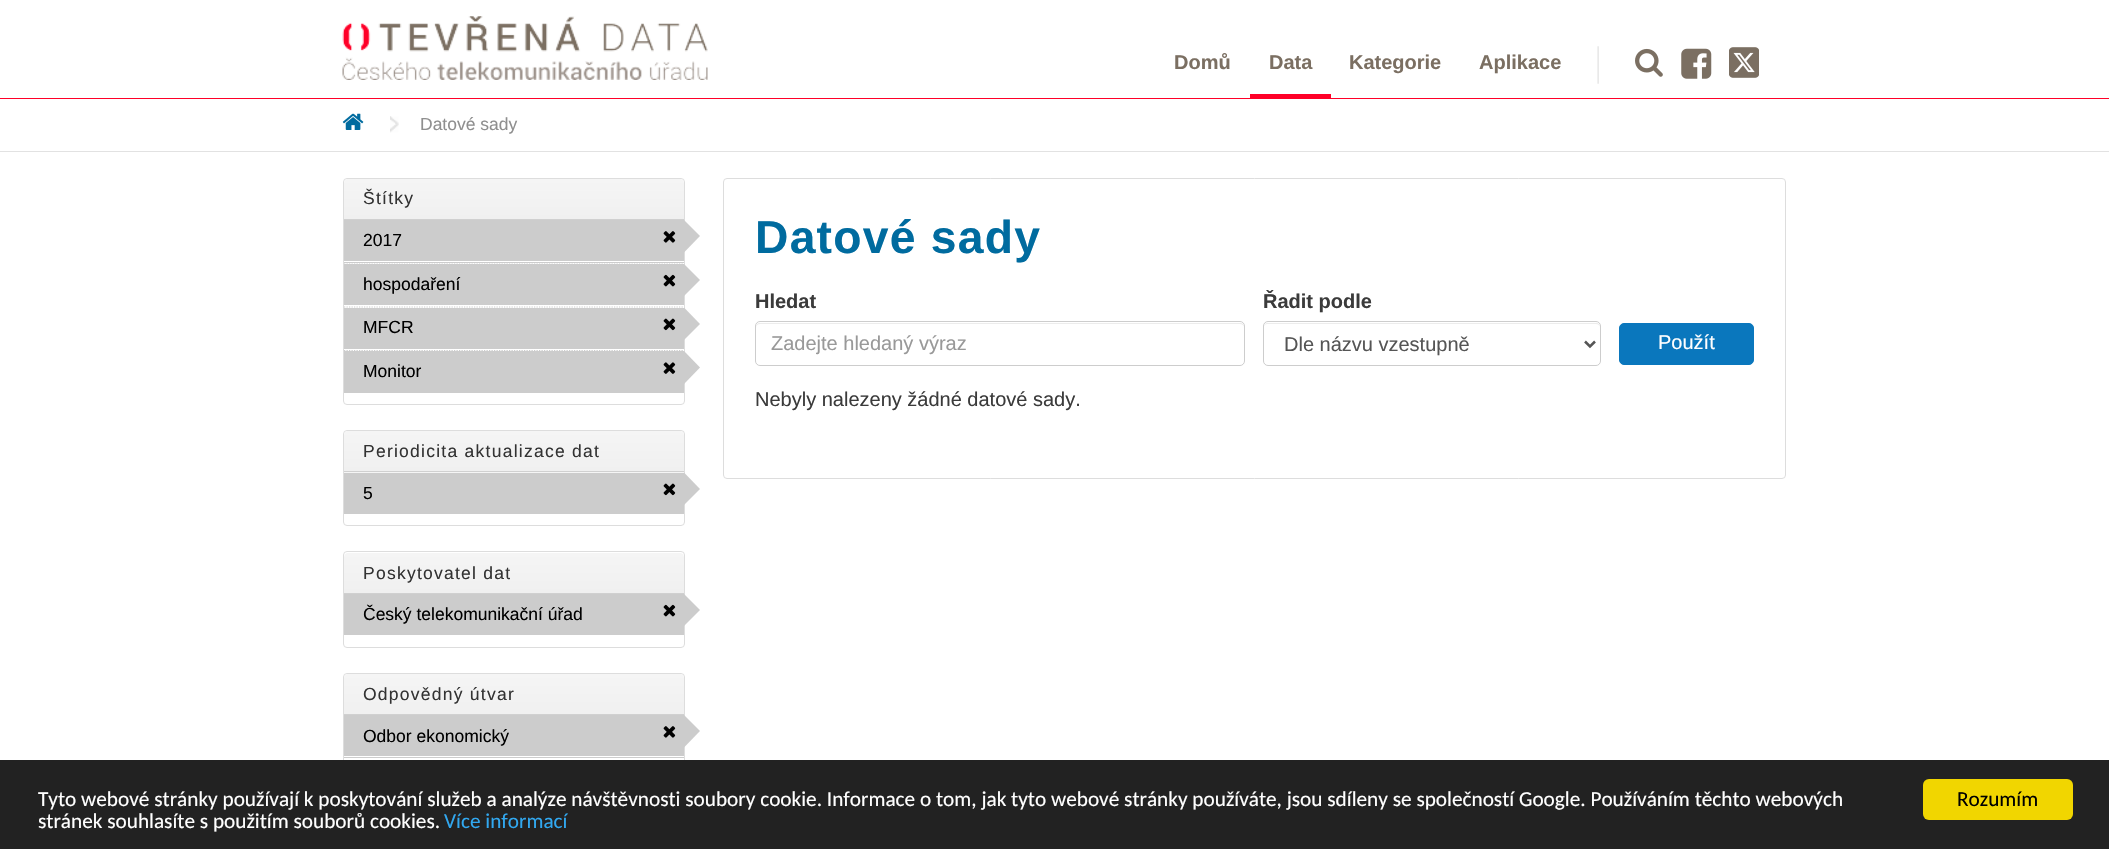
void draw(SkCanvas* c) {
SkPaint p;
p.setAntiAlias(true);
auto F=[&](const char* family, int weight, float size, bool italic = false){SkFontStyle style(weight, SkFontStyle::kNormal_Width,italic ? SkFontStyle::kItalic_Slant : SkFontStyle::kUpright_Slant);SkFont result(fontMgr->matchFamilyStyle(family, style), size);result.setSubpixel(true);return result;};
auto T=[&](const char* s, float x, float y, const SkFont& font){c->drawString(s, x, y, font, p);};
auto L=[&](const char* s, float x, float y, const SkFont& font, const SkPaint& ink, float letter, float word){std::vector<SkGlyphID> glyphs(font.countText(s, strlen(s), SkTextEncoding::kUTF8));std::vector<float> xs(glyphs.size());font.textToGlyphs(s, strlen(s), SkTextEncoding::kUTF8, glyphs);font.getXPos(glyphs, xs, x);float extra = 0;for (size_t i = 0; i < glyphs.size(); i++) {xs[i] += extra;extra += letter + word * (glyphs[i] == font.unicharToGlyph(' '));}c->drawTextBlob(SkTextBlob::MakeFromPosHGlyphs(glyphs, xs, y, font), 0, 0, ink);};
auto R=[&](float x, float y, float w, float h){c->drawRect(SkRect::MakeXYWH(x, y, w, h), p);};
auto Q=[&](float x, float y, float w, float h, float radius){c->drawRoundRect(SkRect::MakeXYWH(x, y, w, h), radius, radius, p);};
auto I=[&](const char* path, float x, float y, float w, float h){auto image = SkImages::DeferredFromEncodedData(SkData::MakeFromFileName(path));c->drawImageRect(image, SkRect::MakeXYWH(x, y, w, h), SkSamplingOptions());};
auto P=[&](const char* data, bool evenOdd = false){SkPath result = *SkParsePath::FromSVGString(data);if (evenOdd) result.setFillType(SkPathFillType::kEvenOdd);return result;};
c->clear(0xffffffff);
p.setColor(0xffff0028);
R(0,98,2109,1);
I("1.png",342,16,366,64);
I("2.png",1597,46,2,38);
auto f1 = F("Liberation Sans",700,20);
p.setColor(0xff7b6f62);
T("Domů",1174,69,f1);
p.setColor(0xffff0028);
R(1250,94,81,4);
p.setColor(0xff7b6f62);
T("Data",1269,69,f1);
T("Kategorie",1349,69,f1);
T("Aplikace",1479,69,f1);
I("3.png",1635,48,28,29);
I("4.png",1681,48,31,31);
I("5.png",1729,47,30,31);
p.setColor(0xffe2e2e2);
R(0,151,2109,1);
I("6.png",342,113,22,17);
I("7.png",390,116,9,17);
auto f2 = F("Liberation Sans",400,17.5);
p.setColor(0xff8f8f8f);
T("Datové sady",420,130,f2);
p.setStroke(true);
p.setStrokeWidth(1);
p.setColor(0xffdddddd);
c->drawRoundRect(SkRect::MakeXYWH(343.5,178.5,341,226),3.5,3.5,p);
p.setStroke(false);
{
const SkColor colors[] = {0xfff5f5f5,0xfff0f0f0};
const float stops[] = {0,1};
const SkPoint ends[] = {{514,179}, {514,219}};
p.setShader(SkGradientShader::MakeLinear(ends, colors, stops, 2, SkTileMode::kClamp));
p.setAlpha(255);
}
c->drawPath(P("M348 179h332c2 0 4 2 4 4v36h-340v-36c0-2 2-4 4-4z"),p);
p.setShader(nullptr);
p.setColor(0xffd0d0d0);
R(344,219,340,1);
p.setColor(0xff333333);
L("Štítky",363,204,f2,p,1.25,0);
p.setStroke(true);
p.setStrokeWidth(1.2);
p.setColor(0xffcccccc);
p.setPathEffect(SkDashPathEffect::Make({{1.25f,1.25f}}, 0));
c->drawPath(P("M344 263h340"),p);
p.setPathEffect(nullptr);
p.setStroke(false);
R(344,220,340,43);
p.setColor(0xffffffff);
R(344,261,340,1);
p.setColor(0xff000000);
T("2017",363,246,f2);
I("8.png",663,231,13,12);
p.setColor(0xffcccccc);
c->drawPath(P("M684 252.5v-32.5l16 16z"),p);
p.setStroke(true);
p.setPathEffect(SkDashPathEffect::Make({{1.25f,1.25f}}, 0));
c->drawPath(P("M344 307h340"),p);
p.setPathEffect(nullptr);
p.setStroke(false);
R(344,264,340,41);
p.setColor(0xff000000);
T("hospodaření",363,290,f2);
I("9.png",663,274,13,13);
p.setColor(0xffcccccc);
c->drawPath(P("M684 296v-32l16 16z"),p);
p.setStroke(true);
p.setPathEffect(SkDashPathEffect::Make({{1.25f,1.25f}}, 0));
c->drawPath(P("M344 350.5h340"),p);
p.setPathEffect(nullptr);
p.setStroke(false);
R(344,308,340,41);
p.setColor(0xffffffff);
R(344,349,340,1);
p.setColor(0xff000000);
T("MFCR",363,333,f2);
I("10.png",663,318,13,13);
p.setColor(0xffcccccc);
c->drawPath(P("M684 340v-32.5l16 16.5z"),p);
R(344,351,340,42);
p.setColor(0xff000000);
T("Monitor",363,377,f2);
I("11.png",663,362,13,12);
p.setColor(0xffcccccc);
c->drawPath(P("M684 384v-33l16 16.5z"),p);
p.setStroke(true);
p.setStrokeWidth(1);
p.setColor(0xffdddddd);
c->drawRoundRect(SkRect::MakeXYWH(343.5,430.5,341,95),3.5,3.5,p);
p.setStroke(false);
{
const SkColor colors[] = {0xfff5f5f5,0xfff0f0f0};
const float stops[] = {0,1};
const SkPoint ends[] = {{514,431}, {514,471}};
p.setShader(SkGradientShader::MakeLinear(ends, colors, stops, 2, SkTileMode::kClamp));
p.setAlpha(255);
}
c->drawPath(P("M348 431h332c2 0 4 2 4 4v36h-340v-36c0-2 2-4 4-4z"),p);
{
const SkColor colors[] = {0xfff5f5f5,0xfff0f0f0};
const float stops[] = {0,1};
const SkPoint ends[] = {{514,471}, {514,511}};
p.setShader(SkGradientShader::MakeLinear(ends, colors, stops, 2, SkTileMode::kClamp));
p.setAlpha(255);
}
R(344,472,340,1);
p.setShader(nullptr);
p.setColor(0xffd0d0d0);
R(344,471,340,1);
p.setColor(0xff333333);
L("Periodicita aktualizace dat",363,457,f2,p,1.25,0);
p.setColor(0xffcccccc);
R(344,473,340,41);
p.setColor(0xff000000);
T("5",363,499,f2);
I("10.png",663,483,13,13);
p.setColor(0xffcccccc);
c->drawPath(P("M684 505v-32.5l16 16.5z"),p);
p.setStroke(true);
p.setColor(0xffdddddd);
c->drawRoundRect(SkRect::MakeXYWH(343.5,551.5,341,96),3.5,3.5,p);
p.setStroke(false);
{
const SkColor colors[] = {0xfff5f5f5,0xfff0f0f0};
const float stops[] = {0,1};
const SkPoint ends[] = {{514,553}, {514,593}};
p.setShader(SkGradientShader::MakeLinear(ends, colors, stops, 2, SkTileMode::kClamp));
p.setAlpha(255);
}
c->drawPath(P("M348 553h332c2 0 4 2 4 4v36h-340v-36c0-2 2-4 4-4z"),p);
p.setShader(nullptr);
p.setColor(0xffd0d0d0);
R(344,593,340,1);
p.setColor(0xff333333);
L("Poskytovatel dat",363,579,f2,p,1.25,0);
p.setColor(0xffcccccc);
R(344,594,340,41);
p.setColor(0xff000000);
T("Český telekomunikační úřad",363,620,f2);
I("9.png",663,604,13,13);
p.setColor(0xffcccccc);
c->drawPath(P("M684 626v-32l16 16z"),p);
p.setStroke(true);
p.setColor(0xffdddddd);
c->drawRoundRect(SkRect::MakeXYWH(343.5,673.5,341,95),3.5,3.5,p);
p.setStroke(false);
{
const SkColor colors[] = {0xfff5f5f5,0xfff0f0f0};
const float stops[] = {0,1};
const SkPoint ends[] = {{514,674}, {514,714}};
p.setShader(SkGradientShader::MakeLinear(ends, colors, stops, 2, SkTileMode::kClamp));
p.setAlpha(255);
}
c->drawPath(P("M348 674h332c2 0 4 2 4 4v36h-340v-36c0-2 2-4 4-4z"),p);
p.setShader(nullptr);
p.setColor(0xffd0d0d0);
R(344,714,340,1);
p.setColor(0xff333333);
L("Odpovědný útvar",363,700,f2,p,1.25,0);
p.setColor(0xffcccccc);
R(344,715,340,43);
p.setColor(0xffffffff);
R(344,756,340,1);
p.setColor(0xff000000);
T("Odbor ekonomický",363,742,f2);
I("8.png",663,726,13,12);
p.setColor(0xffcccccc);
c->drawPath(P("M684 747.5v-32.5l16 16z"),p);
p.setStroke(true);
p.setColor(0xffdddddd);
c->drawRoundRect(SkRect::MakeXYWH(723.5,178.5,1062,300),3.5,3.5,p);
auto f3 = F("Liberation Sans",700,46.25);
p.setStroke(false);
p.setColor(0xff006b9f);
L("Datové sady",755,253,f3,p,1.25,0);
p.setColor(0xff3b3b3b);
T("Hledat",755,308,f1);
p.setColor(0xffececec);
c->drawPath(P("M760 324h480c2 0 4 1 4 4c0-3-1-5-4-5h-480c-3 0-4 2-4 5c0-3 2-4 4-4z"),p);
p.setStroke(true);
p.setColor(0xffcdcdcd);
c->drawRoundRect(SkRect::MakeXYWH(755.5,321.5,489,44),4.5,4.5,p);
auto f4 = F("Liberation Sans",400,20);
p.setStroke(false);
p.setColor(0xff999999);
T("Zadejte hledaný výraz",771,350,f4);
p.setColor(0xff3b3b3b);
T("Řadit podle",1263,308,f1);
p.setColor(0xffececec);
c->drawPath(P("M1268 324h328c2 0 4 1 4 4c0-3-1-5-4-5h-328c-3 0-4 2-4 5c0-3 1-4 4-4z"),p);
p.setStroke(true);
p.setColor(0xffcdcdcd);
c->drawRoundRect(SkRect::MakeXYWH(1263.5,321.5,337,44),4.5,4.5,p);
p.setStrokeWidth(2.5);
p.setColor(0xff555555);
c->drawPath(P("M1585 341.5l5 5l5-5"),p);
p.setStroke(false);
T("Dle názvu vzestupně",1284,351,f4);
p.setColor(0xff0a77bd);
c->drawRoundRect(SkRect::MakeXYWH(1619.5,323.5,134,41),4.5,4.5,p);
p.setStroke(true);
p.setStrokeWidth(1);
c->drawRoundRect(SkRect::MakeXYWH(1619.5,323.5,134,41),4.5,4.5,p);
p.setStroke(false);
p.setColor(0xffffffff);
T("Použít",1658,349,f4);
p.setColor(0xff3b3b3b);
T("Nebyly nalezeny žádné datové sady.",755,406,f4);
p.setColor(0xff222222);
R(0,760,2109,89);
auto f5 = F("Carlito",400,21.25);
p.setColor(0xffffffff);
T("Tyto webové stránky používají k poskytování služeb a analýze návštěvnosti soubory cookie. Informace o tom, jak tyto webové stránky používáte, jsou sdíleny se společností Google. Používáním těchto webových",38,806,f5);
T("stránek souhlasíte s použitím souborů cookies.",38,828,f5);
p.setColor(0xff31a8f0);
T("Více informací",444,828,f5);
p.setColor(0xfff1d600);
Q(1923,779,150,41,6);
p.setColor(0xff000000);
T("Rozumím",1957,806,f5);
}
